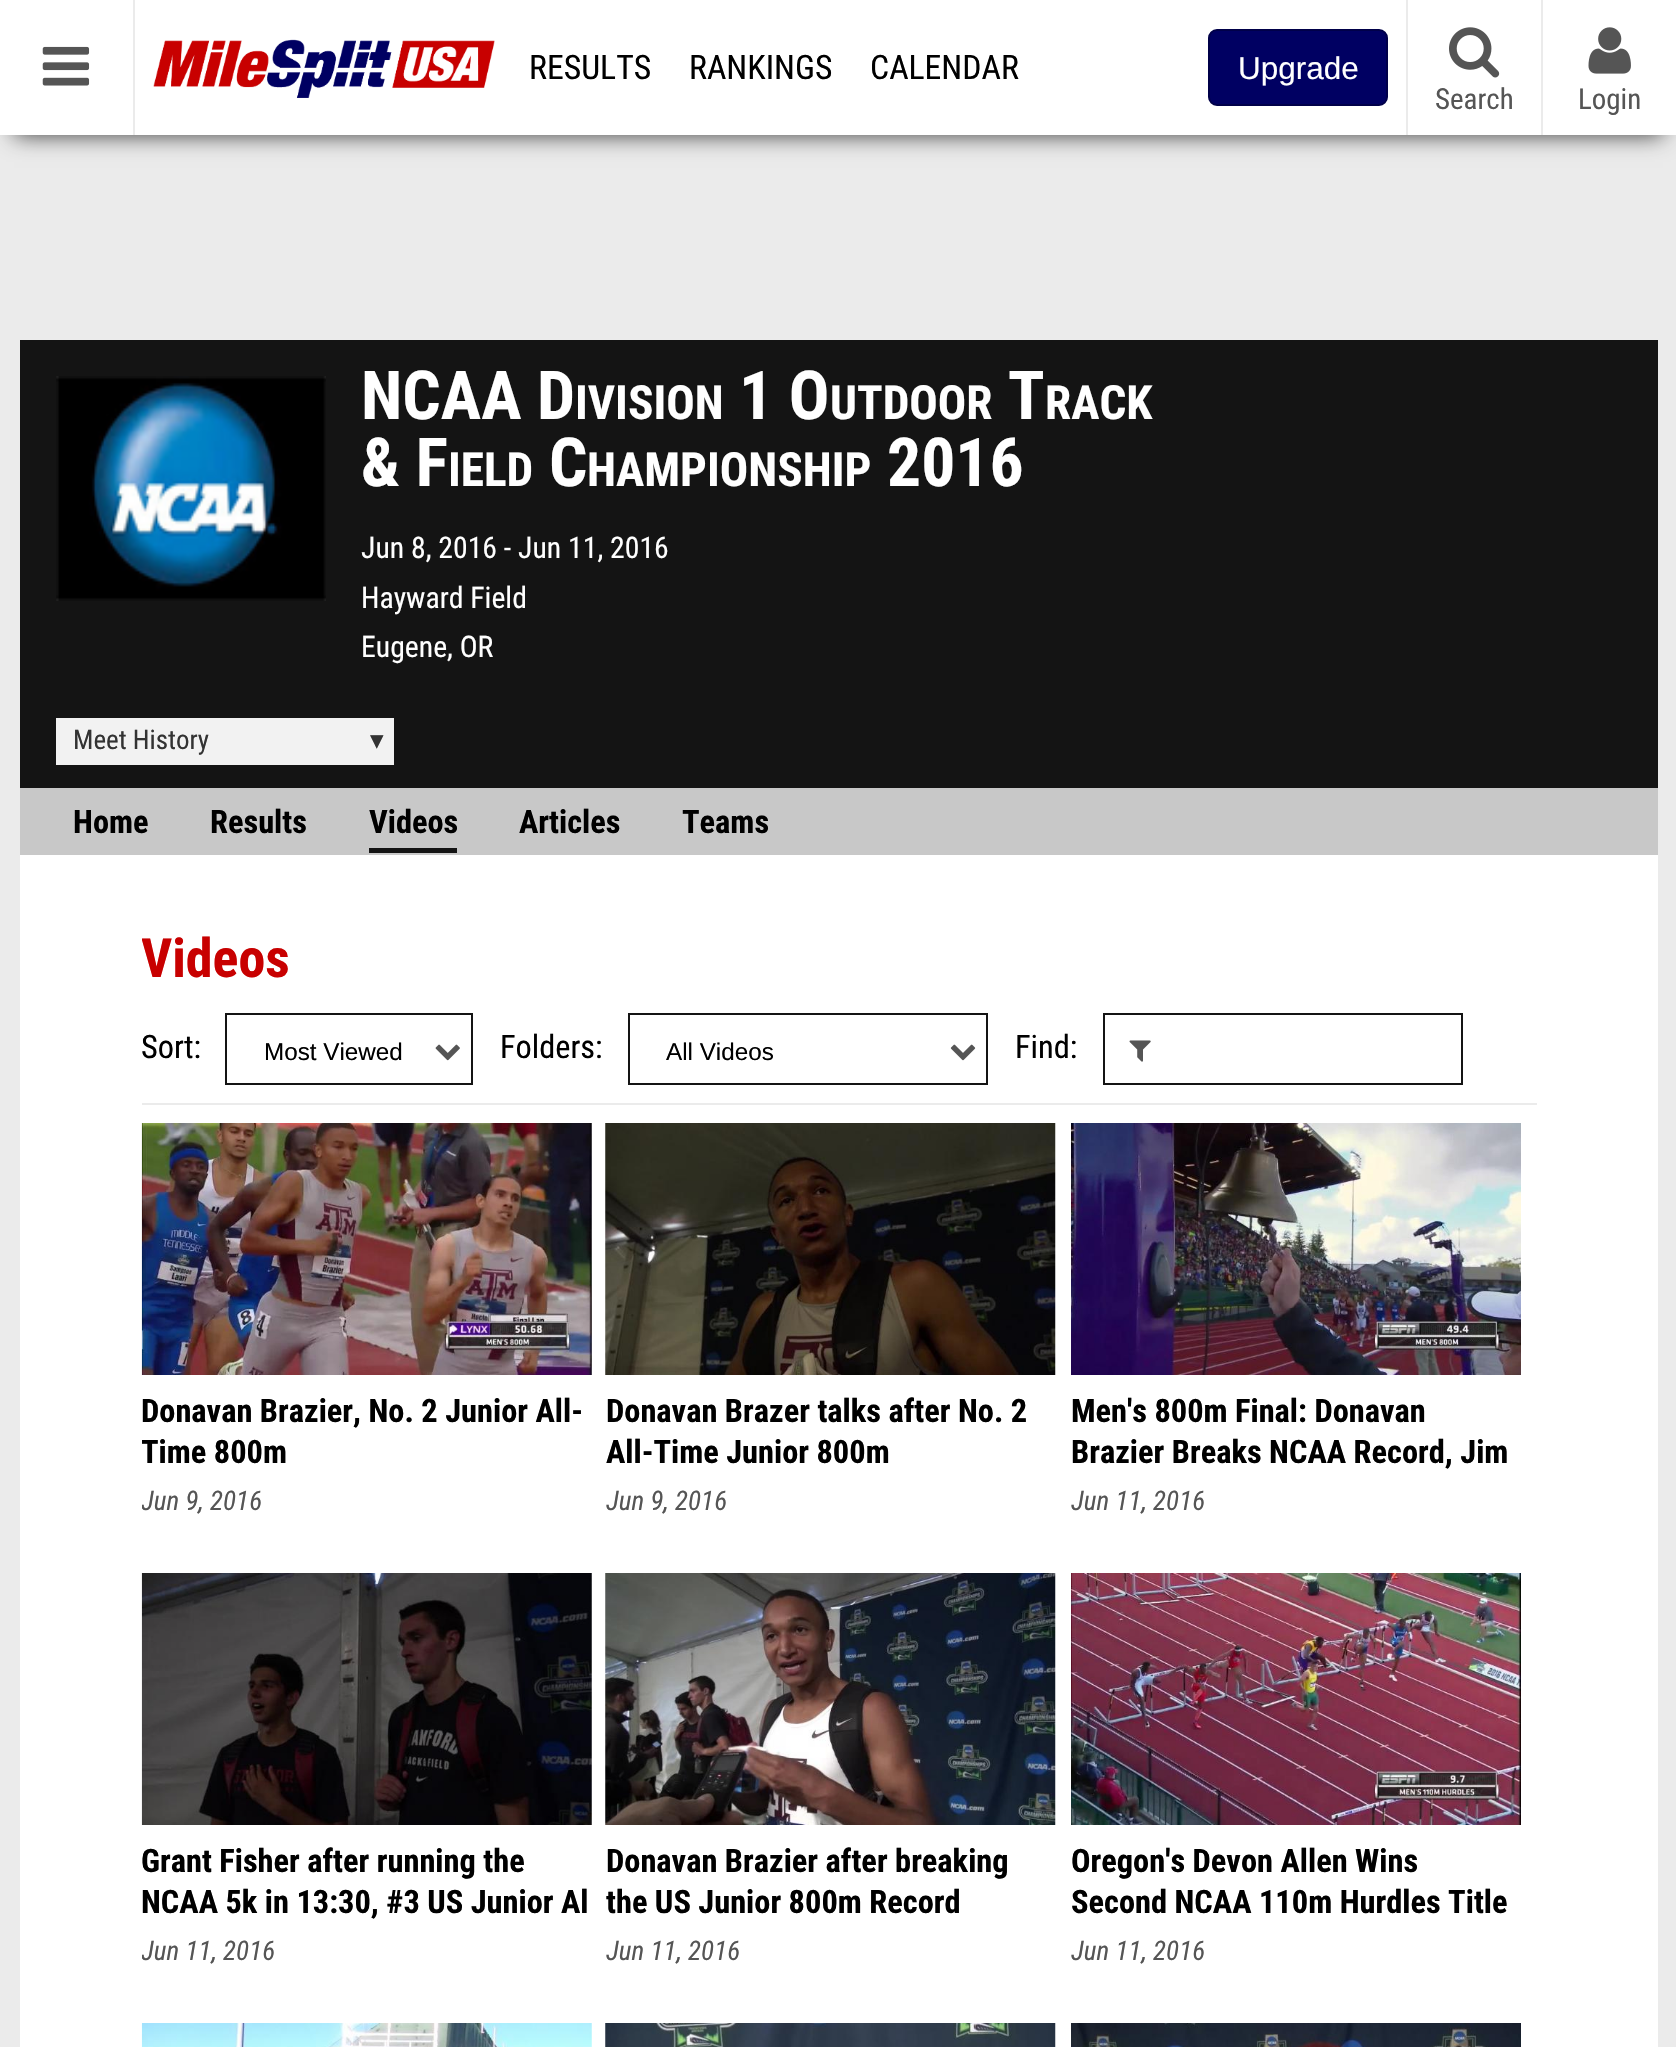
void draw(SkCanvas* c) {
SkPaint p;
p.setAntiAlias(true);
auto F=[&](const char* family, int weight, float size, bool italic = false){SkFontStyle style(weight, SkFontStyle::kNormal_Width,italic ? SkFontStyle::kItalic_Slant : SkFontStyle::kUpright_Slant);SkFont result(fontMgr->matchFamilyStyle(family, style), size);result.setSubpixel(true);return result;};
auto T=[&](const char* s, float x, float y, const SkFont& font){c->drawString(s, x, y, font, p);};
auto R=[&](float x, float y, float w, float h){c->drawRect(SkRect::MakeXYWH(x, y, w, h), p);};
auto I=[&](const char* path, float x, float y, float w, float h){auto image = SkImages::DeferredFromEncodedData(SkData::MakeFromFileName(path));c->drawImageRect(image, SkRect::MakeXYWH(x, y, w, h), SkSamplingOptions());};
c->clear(0xffebebeb);
p.setColor(0xbf000000);
p.setMaskFilter(SkMaskFilter::MakeBlur(kNormal_SkBlurStyle, 11));
c->drawRect(SkRect::MakeXYWH(14,27,1649,108),p);
p.setMaskFilter(nullptr);
p.setColor(0xffffffff);
R(0,0,1676,135);
I("1.png",153,39,342,59);
p.setColor(0xffebebeb);
R(133,0,2,135);
I("2.png",42,46,48,40);
auto f1 = F("Roboto Condensed",400,33.75);
p.setColor(0xff000000);
T("RESULTS",529,79,f1);
T("RANKINGS",689,79,f1);
T("CALENDAR",870,79,f1);
p.setColor(0xff000062);
c->drawRoundRect(SkRect::MakeXYWH(1209,30,178,75),8,8,p);
p.setStroke(true);
p.setStrokeWidth(2);
p.setColor(0xff000049);
c->drawRoundRect(SkRect::MakeXYWH(1209,30,178,75),8,8,p);
auto f2 = F("Liberation Sans",400,31.5);
p.setStroke(false);
p.setColor(0xffffffff);
T("Upgrade",1238,79,f2);
p.setColor(0xffebebeb);
R(1406,0,2,135);
I("3.png",1449,27,51,51);
auto f3 = F("Roboto Condensed",400,29);
p.setColor(0xff555555);
T("Search",1435,109,f3);
p.setColor(0xffebebeb);
R(1541,0,2,135);
I("4.png",1588,27,43,47);
p.setColor(0xff555555);
T("Login",1578,109,f3);
p.setColor(0xffffffff);
R(20,855,1638,1192);
p.setColor(0xff141414);
R(20,340,1638,448);
I("5.png",56,376,270,225);
auto f4 = F("Roboto Condensed",700,67.5);
p.setColor(0xffffffff);
T("NCAA D",361,419,f4);
auto f5 = F("Roboto Condensed",700,47.25);
T("IVISION",575,419,f5);
T("1 O",739,419,f4);
T("UTDOOR",830,419,f5);
T("T",1008,419,f4);
T("RACK",1045,419,f5);
T("& F",361,486,f4);
T("IELD",448,486,f5);
T("C",549,486,f4);
T("HAMPIONSHIP",587,486,f5);
T("2016",887,486,f4);
auto f6 = F("Roboto Condensed",400,29.75);
T("Jun 8, 2016 - Jun 11, 2016",361,558,f6);
T("Hayward Field",361,608,f6);
T("Eugene, OR",361,657,f6);
p.setColor(0xfff2f2f2);
R(56,718,338,47);
auto f7 = F("Roboto Condensed",400,27);
p.setColor(0xff333333);
T("Meet History",73,749,f7);
auto f8 = F("DejaVu Sans",400,27);
T("▾",370,749,f8);
p.setColor(0xffc8c8c8);
R(20,788,1638,67);
auto f9 = F("Roboto Condensed",700,32.4);
p.setColor(0xff000000);
T("Home",73,833,f9);
T("Results",210,833,f9);
p.setColor(0xff141414);
R(369,848,88,5);
p.setColor(0xff000000);
T("Videos",369,833,f9);
T("Articles",519,833,f9);
T("Teams",682,833,f9);
p.setColor(0xffebebeb);
R(142,1103,1395,2);
c->save();
c->clipRect(SkRect::MakeXYWH(142,878,1395,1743));
auto f10 = F("Roboto Condensed",700,54);
p.setColor(0xffc80000);
T("Videos",141,977,f10);
c->restore();
auto f11 = F("Roboto Condensed",400,32.4);
p.setColor(0xff000000);
T("Sort:",141,1058,f11);
p.setStroke(true);
p.setColor(0xff141414);
c->drawRect(SkRect::MakeXYWH(226,1014,246,70),p);
auto f12 = F("Liberation Sans",400,24.25);
p.setStroke(false);
p.setColor(0xff000000);
T("Most Viewed",264,1060,f12);
I("6.png",435,1044,25,17);
T("Folders:",500,1058,f11);
p.setStroke(true);
p.setColor(0xff141414);
c->drawRect(SkRect::MakeXYWH(629,1014,358,70),p);
p.setStroke(false);
p.setColor(0xff000000);
T("All Videos",666,1060,f12);
I("7.png",950,1044,26,17);
T("Find:",1015,1058,f11);
p.setStroke(true);
p.setColor(0xff141414);
c->drawRect(SkRect::MakeXYWH(1104,1014,358,70),p);
I("8.png",1129,1040,22,22);
I("9.png",141,1123,451,252);
p.setStroke(false);
p.setColor(0xff000000);
T("Donavan Brazier, No. 2 Junior All-",141,1422,f9);
c->save();
c->clipRect(SkRect::MakeXYWH(142,1393,450,81));
T("Time 800m",141,1463,f9);
c->restore();
c->save();
c->clipRect(SkRect::MakeXYWH(142,1483,450,36));
auto f13 = F("Roboto Condensed",400,27,true);
p.setColor(0xff555555);
T("Jun 9, 2016",141,1510,f13);
c->restore();
I("10.png",605,1123,451,252);
p.setColor(0xff000000);
T("Donavan Brazer talks after No. 2",606,1422,f9);
T("All-Time Junior 800m",606,1463,f9);
p.setColor(0xff555555);
T("Jun 9, 2016",606,1510,f13);
I("11.png",1071,1123,450,252);
p.setColor(0xff000000);
T("Men's 800m Final: Donavan",1071,1422,f9);
T("Brazier Breaks NCAA Record, Jim",1071,1463,f9);
p.setColor(0xff555555);
T("Jun 11, 2016",1071,1510,f13);
I("12.png",141,1573,451,252);
p.setColor(0xff000000);
T("Grant Fisher after running the",141,1872,f9);
T("NCAA 5k in 13:30, #3 US Junior Al",141,1913,f9);
c->save();
c->clipRect(SkRect::MakeXYWH(142,1933,450,36));
p.setColor(0xff555555);
T("Jun 11, 2016",141,1960,f13);
c->restore();
I("13.png",605,1573,451,252);
p.setColor(0xff000000);
T("Donavan Brazier after breaking",606,1872,f9);
T("the US Junior 800m Record",606,1913,f9);
p.setColor(0xff555555);
T("Jun 11, 2016",606,1960,f13);
I("14.png",1071,1573,450,252);
p.setColor(0xff000000);
T("Oregon's Devon Allen Wins",1071,1872,f9);
T("Second NCAA 110m Hurdles Title",1071,1913,f9);
p.setColor(0xff555555);
T("Jun 11, 2016",1071,1960,f13);
I("15.png",141,2023,451,24);
I("16.png",605,2023,451,24);
I("17.png",1071,2023,450,24);
}
